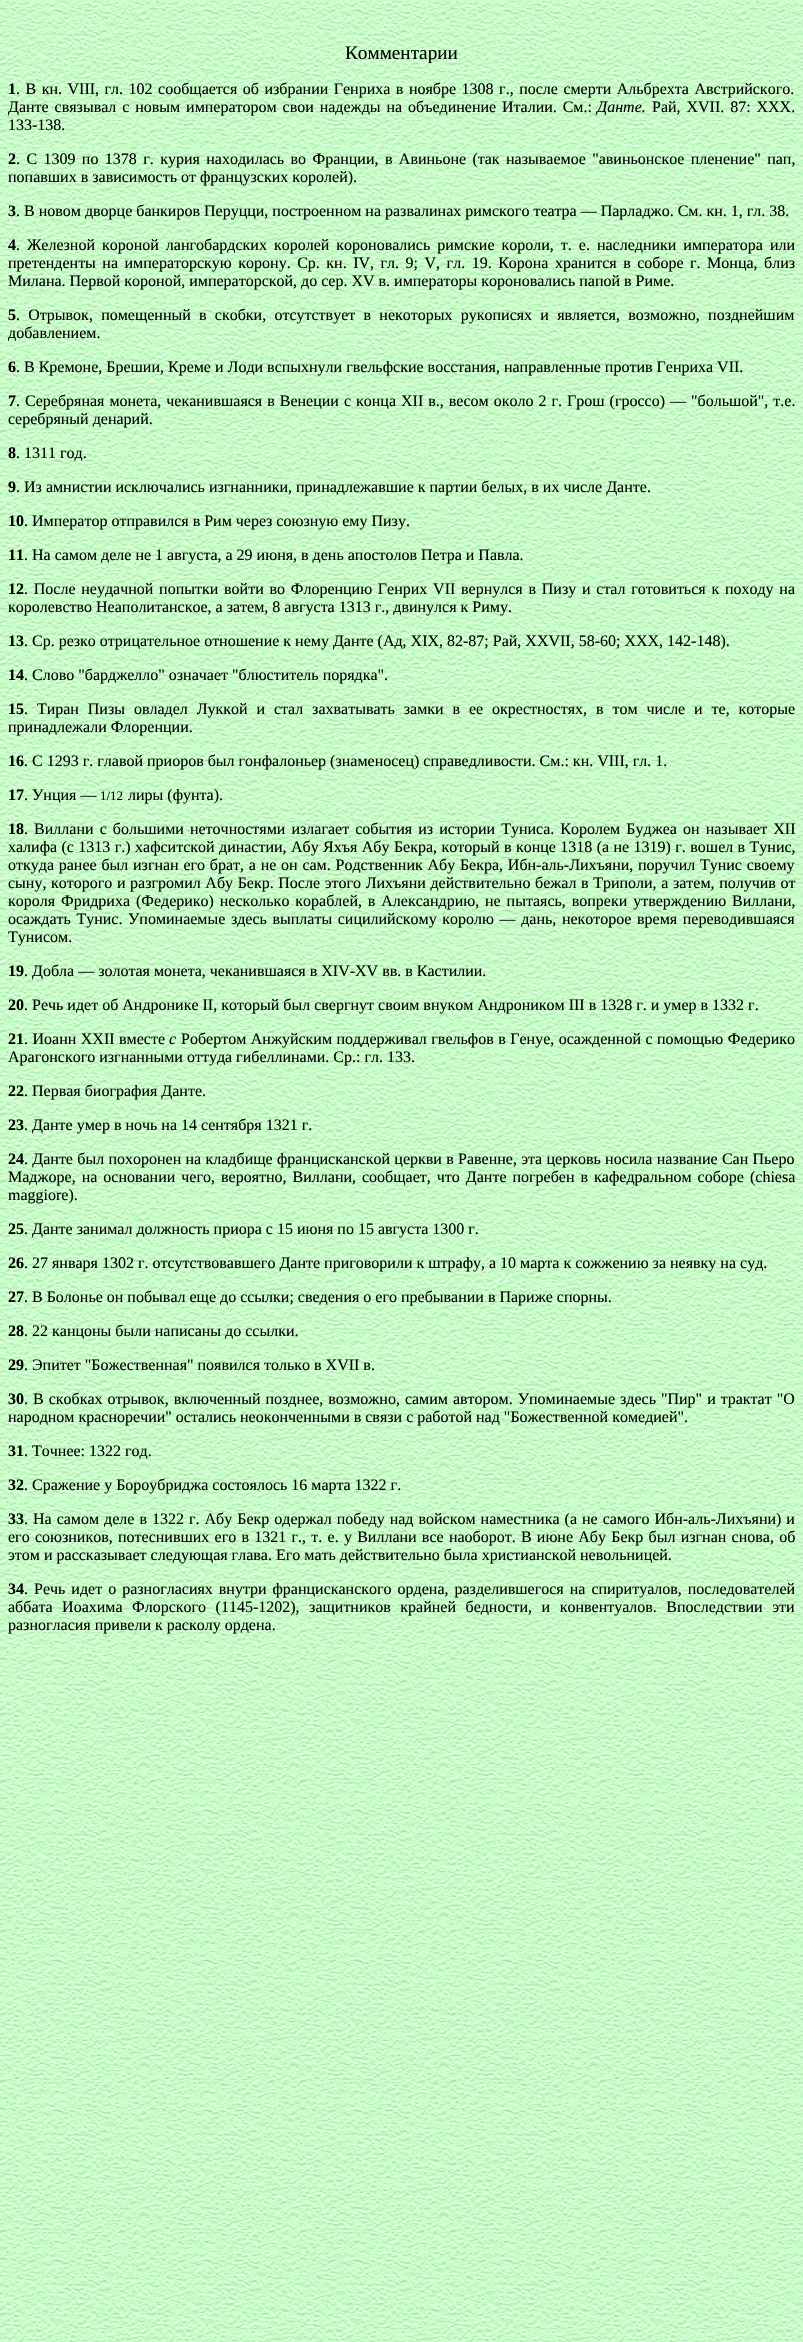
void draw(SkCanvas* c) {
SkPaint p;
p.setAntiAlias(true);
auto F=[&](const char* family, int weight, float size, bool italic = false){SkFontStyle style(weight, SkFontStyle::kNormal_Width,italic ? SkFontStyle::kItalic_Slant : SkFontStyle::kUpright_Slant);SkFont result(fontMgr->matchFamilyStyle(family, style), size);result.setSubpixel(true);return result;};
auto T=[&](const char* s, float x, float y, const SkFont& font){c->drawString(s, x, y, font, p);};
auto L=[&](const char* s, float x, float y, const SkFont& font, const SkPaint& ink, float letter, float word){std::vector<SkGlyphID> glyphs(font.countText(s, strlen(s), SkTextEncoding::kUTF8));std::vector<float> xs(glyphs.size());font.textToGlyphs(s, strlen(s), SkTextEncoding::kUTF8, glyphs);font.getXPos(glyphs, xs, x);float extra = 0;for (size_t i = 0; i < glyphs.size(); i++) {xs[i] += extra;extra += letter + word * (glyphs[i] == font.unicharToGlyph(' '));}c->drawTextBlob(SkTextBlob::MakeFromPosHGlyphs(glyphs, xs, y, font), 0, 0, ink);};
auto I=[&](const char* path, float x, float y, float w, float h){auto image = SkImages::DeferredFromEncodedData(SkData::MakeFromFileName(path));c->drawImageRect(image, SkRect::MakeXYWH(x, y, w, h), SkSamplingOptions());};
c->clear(0xffffffff);
I("1.png",0,0,803,2342);
auto f1 = F("Liberation Serif",400,19.25);
p.setColor(0xff000000);
T("Комментарии",345,59,f1);
auto f2 = F("Liberation Serif",700,16);
T("1",8,94,f2);
auto f3 = F("Liberation Serif",400,16);
L(". В кн. VIII, гл. 102 сообщается об избрании Генриха в ноябре 1308 г., после смерти Альбрехта Австрийского.",16,94,f3,p,0,1.5);
L("Данте связывал с новым императором свои надежды на объединение Италии. См.:",8,112,f3,p,0,1.9);
auto f4 = F("Liberation Serif",400,16,true);
T("Данте.",597,112,f4);
L("Рай, XVII. 87: XXX.",652,112,f3,p,0,1.9);
T("133-138.",8,130,f3);
T("2",8,164,f2);
L(". С 1309 по 1378 г. курия находилась во Франции, в Авиньоне (так называемое \"авиньонское пленение\" пап,",16,164,f3,p,0,2.4);
T("попавших в зависимость от французских королей).",8,182,f3);
T("3",8,216,f2);
T(". В новом дворце банкиров Перуцци, построенном на развалинах римского театра — Парладжо. См. кн. 1, гл. 38.",16,216,f3);
T("4",8,250,f2);
L(". Железной короной лангобардских королей короновались римские короли, т. е. наследники императора или",16,250,f3,p,0,3);
L("претенденты на императорскую корону. Ср. кн. IV, гл. 9; V, гл. 19. Корона хранится в соборе г. Монца, близ",8,268,f3,p,0,2.5);
T("Милана. Первой короной, императорской, до сер. XV в. императоры короновались папой в Риме.",8,286,f3);
T("5",8,320,f2);
L(". Отрывок, помещенный в скобки, отсутствует в некоторых рукописях и является, возможно, позднейшим",16,320,f3,p,0,4.25);
T("добавлением.",8,338,f3);
T("6",8,372,f2);
T(". В Кремоне, Брешии, Креме и Лоди вспыхнули гвельфские восстания, направленные против Генриха VII.",16,372,f3);
T("7",8,406,f2);
L(". Серебряная монета, чеканившаяся в Венеции с конца XII в., весом около 2 г. Грош (гроссо) — \"большой\", т.е.",16,406,f3,p,0,1);
T("серебряный денарий.",8,424,f3);
T("8",8,458,f2);
T(". 1311 год.",16,458,f3);
T("9",8,492,f2);
T(". Из амнистии исключались изгнанники, принадлежавшие к партии белых, в их числе Данте.",16,492,f3);
T("10",8,526,f2);
T(". Император отправился в Рим через союзную ему Пизу.",24,526,f3);
T("11",8,560,f2);
T(". На самом деле не 1 августа, а 29 июня, в день апостолов Петра и Павла.",24,560,f3);
T("12",8,594,f2);
L(". После неудачной попытки войти во Флоренцию Генрих VII вернулся в Пизу и стал готовиться к походу на",24,594,f3,p,0,1.75);
T("королевство Неаполитанское, а затем, 8 августа 1313 г., двинулся к Риму.",8,612,f3);
T("13",8,646,f2);
T(". Ср. резко отрицательное отношение к нему Данте (Ад, XIX, 82-87; Рай, XXVII, 58-60; XXX, 142-148).",24,646,f3);
T("14",8,680,f2);
T(". Слово \"барджелло\" означает \"блюститель порядка\".",24,680,f3);
T("15",8,714,f2);
L(". Тиран Пизы овладел Луккой и стал захватывать замки в ее окрестностях, в том числе и те, которые",24,714,f3,p,0,4.9);
T("принадлежали Флоренции.",8,732,f3);
T("16",8,766,f2);
T(". С 1293 г. главой приоров был гонфалоньер (знаменосец) справедливости. См.: кн. VIII, гл. 1.",24,766,f3);
T("17",8,800,f2);
T(". Унция —",24,800,f3);
auto f5 = F("Liberation Serif",400,13);
T("1/12",100,800,f5);
T("лиры (фунта).",128,800,f3);
T("18",8,834,f2);
L(". Виллани с большими неточностями излагает события из истории Туниса. Королем Буджеа он называет XII",24,834,f3,p,0,2.1);
L("халифа (с 1313 г.) хафситской династии, Абу Яхъя Абу Бекра, который в конце 1318 (а не 1319) г. вошел в Тунис,",8,852,f3,p,0,.4);
L("откуда ранее был изгнан его брат, а не он сам. Родственник Абу Бекра, Ибн-аль-Лихъяни, поручил Тунис своему",8,870,f3,p,0,.75);
L("сыну, которого и разгромил Абу Бекр. После этого Лихъяни действительно бежал в Триполи, а затем, получив от",8,888,f3,p,0,.6);
L("короля Фридриха (Федерико) несколько кораблей, в Александрию, не пытаясь, вопреки утверждению Виллани,",8,906,f3,p,0,1.9);
L("осаждать Тунис. Упоминаемые здесь выплаты сицилийскому королю — дань, некоторое время переводившаяся",8,924,f3,p,0,1.6);
T("Тунисом.",8,942,f3);
T("19",8,976,f2);
T(". Добла — золотая монета, чеканившаяся в XIV-XV вв. в Кастилии.",24,976,f3);
T("20",8,1010,f2);
T(". Речь идет об Андронике II, который был свергнут своим внуком Андроником III в 1328 г. и умер в 1332 г.",24,1010,f3);
T("21",8,1044,f2);
L(". Иоанн XXII вместе",24,1044,f3,p,0,.5);
T("с",169,1044,f4);
L("Робертом Анжуйским поддерживал гвельфов в Генуе, осажденной с помощью Федерико",181,1044,f3,p,0,.5);
T("Арагонского изгнанными оттуда гибеллинами. Ср.: гл. 133.",8,1062,f3);
T("22",8,1096,f2);
T(". Первая биография Данте.",24,1096,f3);
T("23",8,1130,f2);
T(". Данте умер в ночь на 14 сентября 1321 г.",24,1130,f3);
T("24",8,1164,f2);
L(". Данте был похоронен на кладбище францисканской церкви в Равенне, эта церковь носила название Сан Пьеро",24,1164,f3,p,0,.3);
L("Маджоре, на основании чего, вероятно, Виллани, сообщает, что Данте погребен в кафедральном соборе (chiesa",8,1182,f3,p,0,2);
T("maggiore).",8,1200,f3);
T("25",8,1234,f2);
T(". Данте занимал должность приора с 15 июня по 15 августа 1300 г.",24,1234,f3);
T("26",8,1268,f2);
T(". 27 января 1302 г. отсутствовавшего Данте приговорили к штрафу, а 10 марта к сожжению за неявку на суд.",24,1268,f3);
T("27",8,1302,f2);
T(". В Болонье он побывал еще до ссылки; сведения о его пребывании в Париже спорны.",24,1302,f3);
T("28",8,1336,f2);
T(". 22 канцоны были написаны до ссылки.",24,1336,f3);
T("29",8,1370,f2);
T(". Эпитет \"Божественная\" появился только в XVII в.",24,1370,f3);
T("30",8,1404,f2);
L(". В скобках отрывок, включенный позднее, возможно, самим автором. Упоминаемые здесь \"Пир\" и трактат \"О",24,1404,f3,p,0,1);
T("народном красноречии\" остались неоконченными в связи с работой над \"Божественной комедией\".",8,1422,f3);
T("31",8,1456,f2);
T(". Точнее: 1322 год.",24,1456,f3);
T("32",8,1490,f2);
T(". Сражение у Бороубриджа состоялось 16 марта 1322 г.",24,1490,f3);
T("33",8,1524,f2);
L(". На самом деле в 1322 г. Абу Бекр одержал победу над войском наместника (а не самого Ибн-аль-Лихъяни) и",24,1524,f3,p,0,1);
L("его союзников, потеснивших его в 1321 г., т. е. у Виллани все наоборот. В июне Абу Бекр был изгнан снова, об",8,1542,f3,p,0,1.25);
T("этом и рассказывает следующая глава. Его мать действительно была христианской невольницей.",8,1560,f3);
T("34",8,1594,f2);
L(". Речь идет о разногласиях внутри францисканского ордена, разделившегося на спиритуалов, последователей",24,1594,f3,p,0,2);
L("аббата Иоахима Флорского (1145-1202), защитников крайней бедности, и конвентуалов. Впоследствии эти",8,1612,f3,p,0,5.5);
T("разногласия привели к расколу ордена.",8,1630,f3);
}
